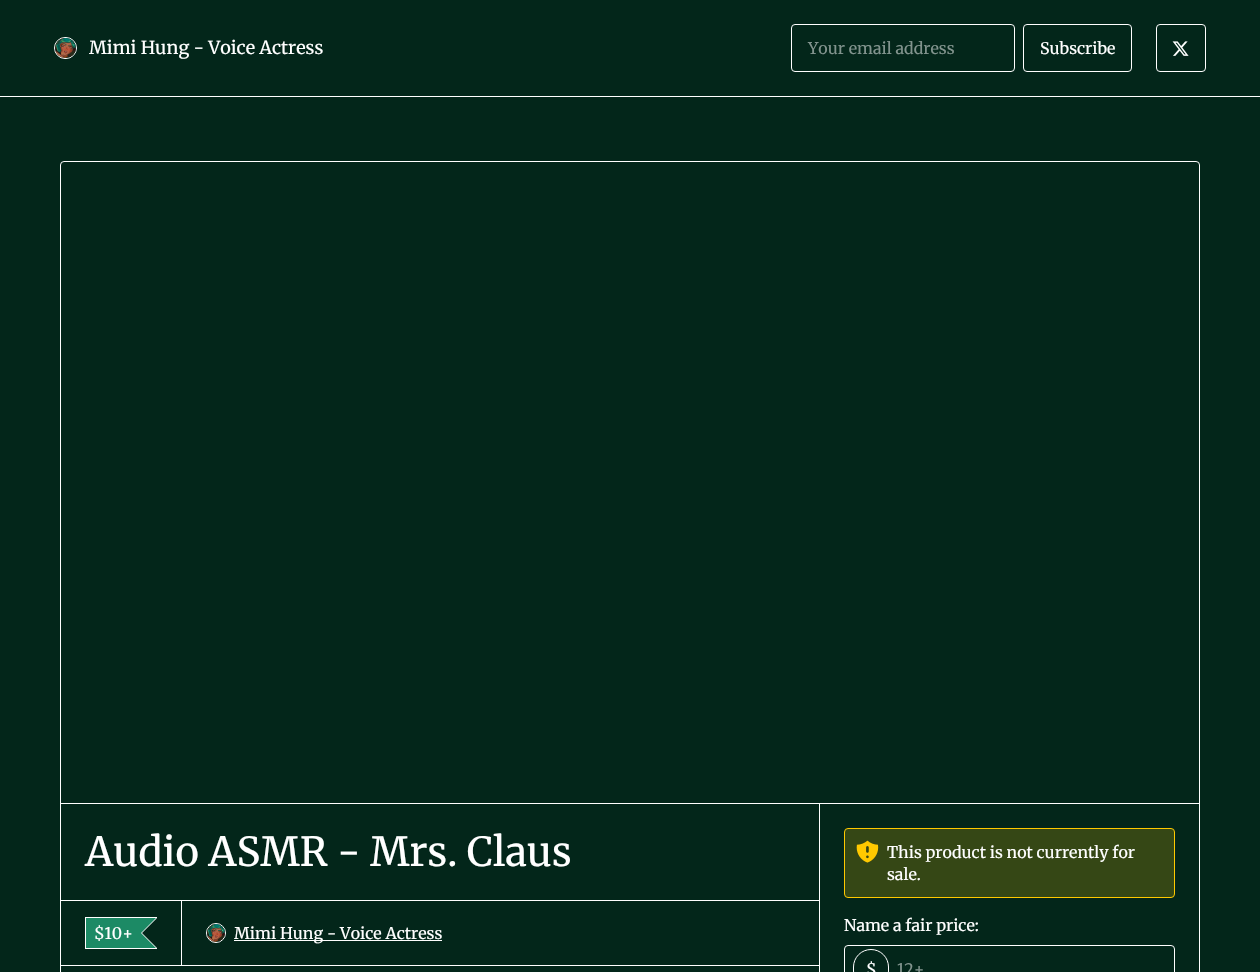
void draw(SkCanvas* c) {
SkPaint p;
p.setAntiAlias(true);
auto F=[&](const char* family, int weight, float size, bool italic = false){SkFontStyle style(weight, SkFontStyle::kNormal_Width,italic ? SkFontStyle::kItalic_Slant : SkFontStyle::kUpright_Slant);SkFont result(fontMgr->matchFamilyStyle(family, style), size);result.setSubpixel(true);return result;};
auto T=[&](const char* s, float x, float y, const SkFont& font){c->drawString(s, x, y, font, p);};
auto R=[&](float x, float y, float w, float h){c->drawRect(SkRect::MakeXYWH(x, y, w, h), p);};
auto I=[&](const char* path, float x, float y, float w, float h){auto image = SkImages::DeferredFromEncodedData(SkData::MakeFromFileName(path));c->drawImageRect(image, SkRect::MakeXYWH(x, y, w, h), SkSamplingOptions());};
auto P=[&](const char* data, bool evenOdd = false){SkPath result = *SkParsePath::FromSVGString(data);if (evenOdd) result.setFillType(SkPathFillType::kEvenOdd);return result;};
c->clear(0xff03261a);
p.setColor(0xffffffff);
R(0,96,1260,1);
p.setStroke(true);
p.setStrokeWidth(1);
c->drawRoundRect(SkRect::MakeXYWH(54.5,37.5,22,21),10.5,10.5,p);
I("1.png",55,38,21,20);
auto f1 = F("Merriweather",400,18);
p.setStroke(false);
T("Mimi Hung - Voice Actress",89,54,f1);
p.setStroke(true);
c->drawRoundRect(SkRect::MakeXYWH(791.5,24.5,223,47),3.5,3.5,p);
auto f2 = F("Merriweather",400,16);
p.setStroke(false);
p.setColor(0xff81938d);
T("Your email address",808,54,f2);
p.setStroke(true);
p.setColor(0xffffffff);
c->drawRoundRect(SkRect::MakeXYWH(1023.5,24.5,108,47),3.5,3.5,p);
p.setStroke(false);
T("Subscribe",1040,54,f2);
p.setStroke(true);
c->drawRoundRect(SkRect::MakeXYWH(1156.5,24.5,49,47),3.5,3.5,p);
I("2.png",1172,41,17,15);
c->drawRoundRect(SkRect::MakeXYWH(60.5,161.5,1139,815),3.5,3.5,p);
p.setStroke(false);
R(61,803,1138,1);
R(819,804,1,168);
auto f3 = F("Merriweather",400,40);
T("Audio ASMR - Mrs. Claus",85,866,f3);
R(182,900,637,1);
p.setStroke(true);
c->drawRect(SkRect::MakeXYWH(60.5,900.5,121,65),p);
p.setStroke(false);
R(85,917,72,1);
R(85,948,72,1);
R(85,917,1,32);
p.setColor(0xff1c8a65);
R(86,918,55,30);
p.setColor(0xffffffff);
c->drawPath(P("M141 918h16l-15 15zm16 30h-16l1-15z"),p);
R(141,932,1,2);
p.setColor(0xff1c8a65);
c->drawPath(P("M140 918h16l-15 15zm16 30h-16l1-15z"),p);
p.setColor(0xffffffff);
T("$10+",94,939,f2);
p.setStroke(true);
c->drawCircle(216,933,9.5,p);
I("3.png",207,924,18,18);
p.setStroke(false);
R(234,940,208,1);
T("Mimi Hung - Voice Actress",234,939,f2);
R(182,965,637,1);
p.setColor(0xff354715);
c->drawRoundRect(SkRect::MakeXYWH(844.5,828.5,330,69),3.5,3.5,p);
p.setStroke(true);
p.setColor(0xffffc900);
c->drawRoundRect(SkRect::MakeXYWH(844.5,828.5,330,69),3.5,3.5,p);
I("4.png",856,840,23,23);
p.setStroke(false);
p.setColor(0xffffffff);
T("This product is not currently for",887,858,f2);
T("sale.",887,880,f2);
T("Name a fair price:",844,931,f2);
p.setStroke(true);
c->drawRoundRect(SkRect::MakeXYWH(844.5,945.5,330,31),3.5,3.5,p);
c->drawRoundRect(SkRect::MakeXYWH(853.5,949.5,35,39),17.5,17.5,p);
p.setStroke(false);
T("$",866,975,f2);
p.setColor(0xff81938d);
T("12+",897,975,f2);
}
